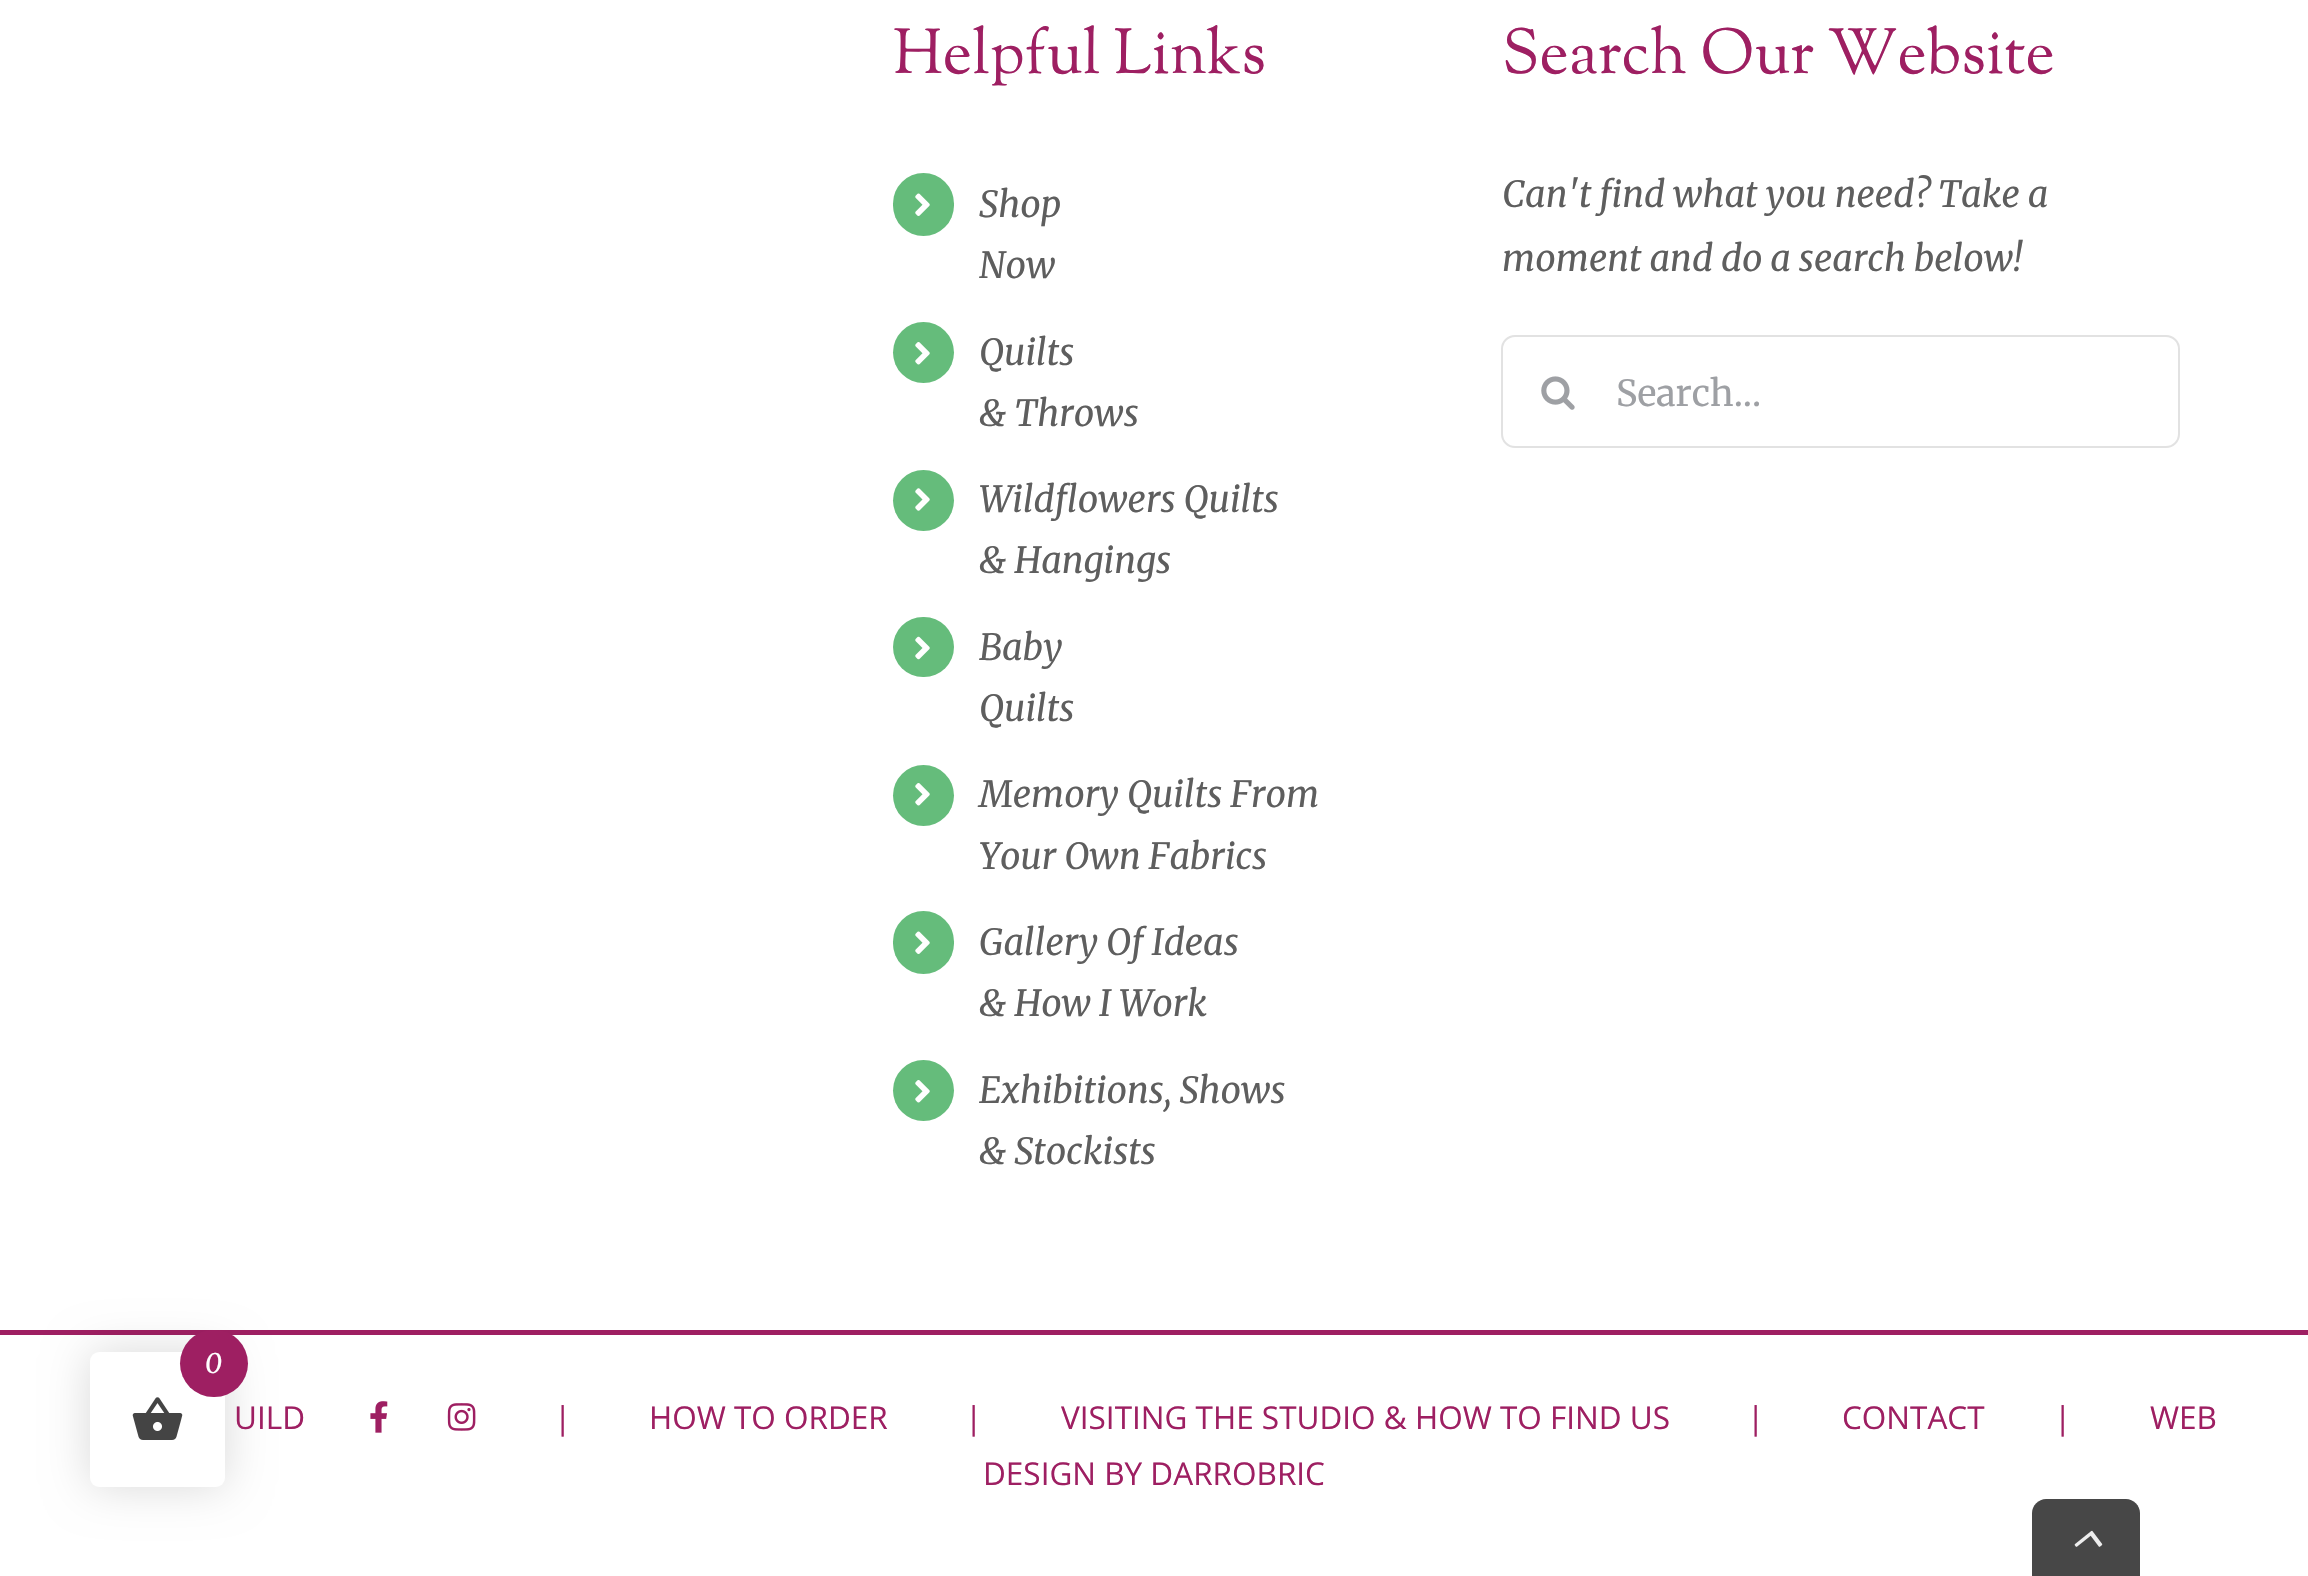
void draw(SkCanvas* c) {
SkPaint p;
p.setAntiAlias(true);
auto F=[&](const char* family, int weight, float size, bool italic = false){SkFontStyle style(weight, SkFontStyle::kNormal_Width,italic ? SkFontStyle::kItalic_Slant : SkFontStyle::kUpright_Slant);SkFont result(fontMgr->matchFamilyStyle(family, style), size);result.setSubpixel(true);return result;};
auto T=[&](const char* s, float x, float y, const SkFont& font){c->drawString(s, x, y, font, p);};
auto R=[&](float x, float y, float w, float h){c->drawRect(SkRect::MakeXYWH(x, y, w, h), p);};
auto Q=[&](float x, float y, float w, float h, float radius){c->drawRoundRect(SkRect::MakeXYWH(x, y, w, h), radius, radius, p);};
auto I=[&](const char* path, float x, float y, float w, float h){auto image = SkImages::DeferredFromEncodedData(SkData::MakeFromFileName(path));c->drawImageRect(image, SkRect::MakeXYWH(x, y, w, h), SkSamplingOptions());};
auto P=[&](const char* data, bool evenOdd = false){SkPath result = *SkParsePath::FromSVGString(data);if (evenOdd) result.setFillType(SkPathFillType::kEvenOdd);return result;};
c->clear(0xffffffff);
p.setColor(0xff9e1f62);
R(0,1330,2308,5);
p.setColor(0x26000000);
p.setMaskFilter(SkMaskFilter::MakeBlur(kNormal_SkBlurStyle, 22.5));
c->drawRoundRect(SkRect::MakeXYWH(90,1352,135,135),9,9,p);
p.setMaskFilter(nullptr);
p.setColor(0xffffffff);
Q(90,1352,135,135,9);
p.setColor(0xff9e1f62);
Q(180,1330,68,67,33.5);
auto f1 = F("Merriweather",400,27,true);
p.setColor(0xffffffff);
T("0",205,1373,f1);
I("1.png",132,1397,51,43);
auto f2 = F("Sorts Mill Goudy",400,63);
p.setColor(0xff9e1f62);
T("Helpful Links",893,73,f2);
p.setColor(0xff65bc7b);
Q(893,173,61,63,30.5);
I("2.png",915,193,15,23);
auto f3 = F("Merriweather",400,36,true);
p.setColor(0xff5e5e5e);
T("Shop",979,217,f3);
T("Now",979,278,f3);
p.setColor(0xff65bc7b);
c->drawCircle(923.5,352.5,30.5,p);
I("3.png",915,342,15,23);
p.setColor(0xff5e5e5e);
T("Quilts",979,365,f3);
T("& Throws",979,426,f3);
p.setColor(0xff65bc7b);
c->drawCircle(923.5,500.5,30.5,p);
I("4.png",915,488,15,23);
p.setColor(0xff5e5e5e);
T("Wildflowers Quilts",979,512,f3);
T("& Hangings",979,573,f3);
p.setColor(0xff65bc7b);
Q(893,617,61,60,30);
I("5.png",915,636,15,24);
p.setColor(0xff5e5e5e);
T("Baby",979,660,f3);
T("Quilts",979,721,f3);
p.setColor(0xff65bc7b);
c->drawCircle(923.5,795.5,30.5,p);
I("3.png",915,783,15,23);
p.setColor(0xff5e5e5e);
T("Memory Quilts From",979,807,f3);
T("Your Own Fabrics",979,869,f3);
p.setColor(0xff65bc7b);
Q(893,911,61,63,30.5);
I("2.png",915,931,15,23);
p.setColor(0xff5e5e5e);
T("Gallery Of Ideas",979,955,f3);
T("& How I Work",979,1016,f3);
p.setColor(0xff65bc7b);
c->drawCircle(923.5,1090.5,30.5,p);
I("3.png",915,1080,15,23);
p.setColor(0xff5e5e5e);
T("Exhibitions, Shows",979,1103,f3);
T("& Stockists",979,1164,f3);
p.setColor(0xff9e1f62);
T("Search Our Website",1502,73,f2);
p.setColor(0xff5e5e5e);
T("Can't find what you need? Take a",1502,207,f3);
T("moment and do a search below!",1502,271,f3);
p.setStroke(true);
p.setStrokeWidth(2);
p.setColor(0xffe2e2e2);
c->drawRoundRect(SkRect::MakeXYWH(1502,336,677,111),13,13,p);
I("6.png",1541,376,34,34);
auto f4 = F("Merriweather",400,36);
p.setStroke(false);
p.setColor(0xff9ea0a4);
T("Search...",1616,406,f4);
auto f5 = F("Open Sans",400,31.5);
p.setColor(0xff9e1f62);
T("UILD",234,1429,f5);
I("7.png",370,1401,18,32);
I("8.png",447,1403,29,28);
T("|",554,1429,f5);
T("HOW TO ORDER",649,1429,f5);
T("|",965,1429,f5);
T("VISITING THE STUDIO & HOW TO FIND US",1061,1429,f5);
T("|",1747,1429,f5);
T("CONTACT",1842,1429,f5);
T("|",2054,1429,f5);
T("WEB",2150,1429,f5);
T("DESIGN BY DARROBRIC",983,1485,f5);
p.setColor(0xff474747);
c->drawPath(P("M2046 1499h80c7.5 0 14 6.5 14 14v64h-108v-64c0-7.5 6.5-14 14-14z"),p);
I("9.png",2074,1530,29,17);
}
